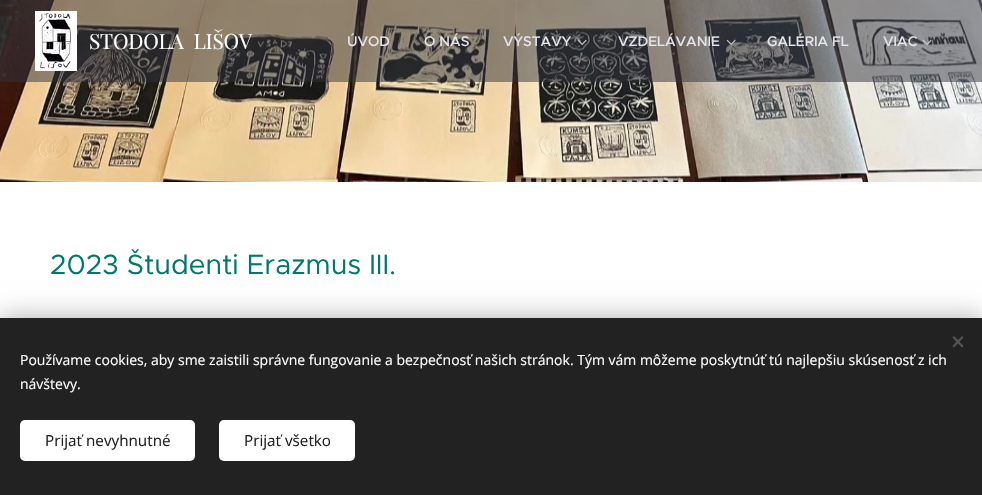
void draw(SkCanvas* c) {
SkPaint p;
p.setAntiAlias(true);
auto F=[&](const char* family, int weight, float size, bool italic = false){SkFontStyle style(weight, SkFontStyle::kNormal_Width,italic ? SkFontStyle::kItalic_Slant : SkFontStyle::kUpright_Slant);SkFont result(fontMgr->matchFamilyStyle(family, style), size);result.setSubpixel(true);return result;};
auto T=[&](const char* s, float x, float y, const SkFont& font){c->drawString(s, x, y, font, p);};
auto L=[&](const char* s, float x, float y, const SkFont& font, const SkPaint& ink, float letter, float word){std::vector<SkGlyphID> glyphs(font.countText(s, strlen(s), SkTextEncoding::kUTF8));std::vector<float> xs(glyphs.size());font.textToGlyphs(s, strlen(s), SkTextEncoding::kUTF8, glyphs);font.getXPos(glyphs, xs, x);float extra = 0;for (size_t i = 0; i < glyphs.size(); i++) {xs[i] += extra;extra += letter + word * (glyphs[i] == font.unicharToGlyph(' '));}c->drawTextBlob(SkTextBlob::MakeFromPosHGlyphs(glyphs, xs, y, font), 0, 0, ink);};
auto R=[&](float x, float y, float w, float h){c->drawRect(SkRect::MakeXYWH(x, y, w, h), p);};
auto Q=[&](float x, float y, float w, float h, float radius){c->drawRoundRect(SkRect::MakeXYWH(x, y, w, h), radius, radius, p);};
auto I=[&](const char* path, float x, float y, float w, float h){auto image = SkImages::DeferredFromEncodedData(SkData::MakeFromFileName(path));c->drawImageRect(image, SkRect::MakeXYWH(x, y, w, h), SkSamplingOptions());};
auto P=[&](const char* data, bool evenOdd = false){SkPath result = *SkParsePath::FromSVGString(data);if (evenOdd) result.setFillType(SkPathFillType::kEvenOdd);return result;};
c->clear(0xffffffff);
I("5.png",0,0,982,182);
p.setColor(0x8030323b);
R(0,0,982,82);
I("1.png",35,11,42,60);
auto f1 = F("Playfair Display",400,21);
p.setColor(0xffffffff);
L("STODOLA  LIŠOV",89,49,f1,p,-.25,0);
auto f2 = F("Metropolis",500,14);
p.setColor(0xffe5e6ee);
T("ÚVOD",347,46,f2);
T("O NÁS",424,46,f2);
T("VÝSTAVY",503,46,f2);
I("2.png",577,39,10,6);
T("VZDELÁVANIE",618,46,f2);
I("3.png",726,39,10,6);
T("GALÉRIA FL",767,46,f2);
T("VIAC",883,46,f2);
I("4.png",922,39,10,6);
auto f3 = F("Metropolis",400,28);
p.setColor(0xff00796b);
T("2023 Študenti Erazmus III.",50,274,f3);
p.setColor(0x54000000);
p.setMaskFilter(SkMaskFilter::MakeBlur(kNormal_SkBlurStyle, 12.5));
c->drawRect(SkRect::MakeXYWH(0,318,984,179),p);
p.setMaskFilter(nullptr);
p.setColor(0xff222222);
R(0,318,982,177);
p.setColor(0xff555555);
c->drawPath(P("M952.5 346l9.5-10l1.5 1.5l-9.5 10z"),p);
c->drawPath(P("M954 336l9.5 10l-1.5 1.5l-9.5-10z"),p);
auto f4 = F("Open Sans",400,14);
p.setColor(0xffffffff);
T("Používame cookies, aby sme zaistili správne fungovanie a bezpečnosť našich stránok. Tým vám môžeme poskytnúť tú najlepšiu skúsenosť z ich",20,365,f4);
T("návštevy.",20,389,f4);
Q(20,420,175,41,5);
auto f5 = F("Open Sans",400,15.25);
p.setColor(0xff222222);
T("Prijať nevyhnutné",45,446,f5);
p.setColor(0xffffffff);
Q(219,420,136,41,5);
p.setColor(0xff222222);
T("Prijať všetko",244,446,f5);
}
